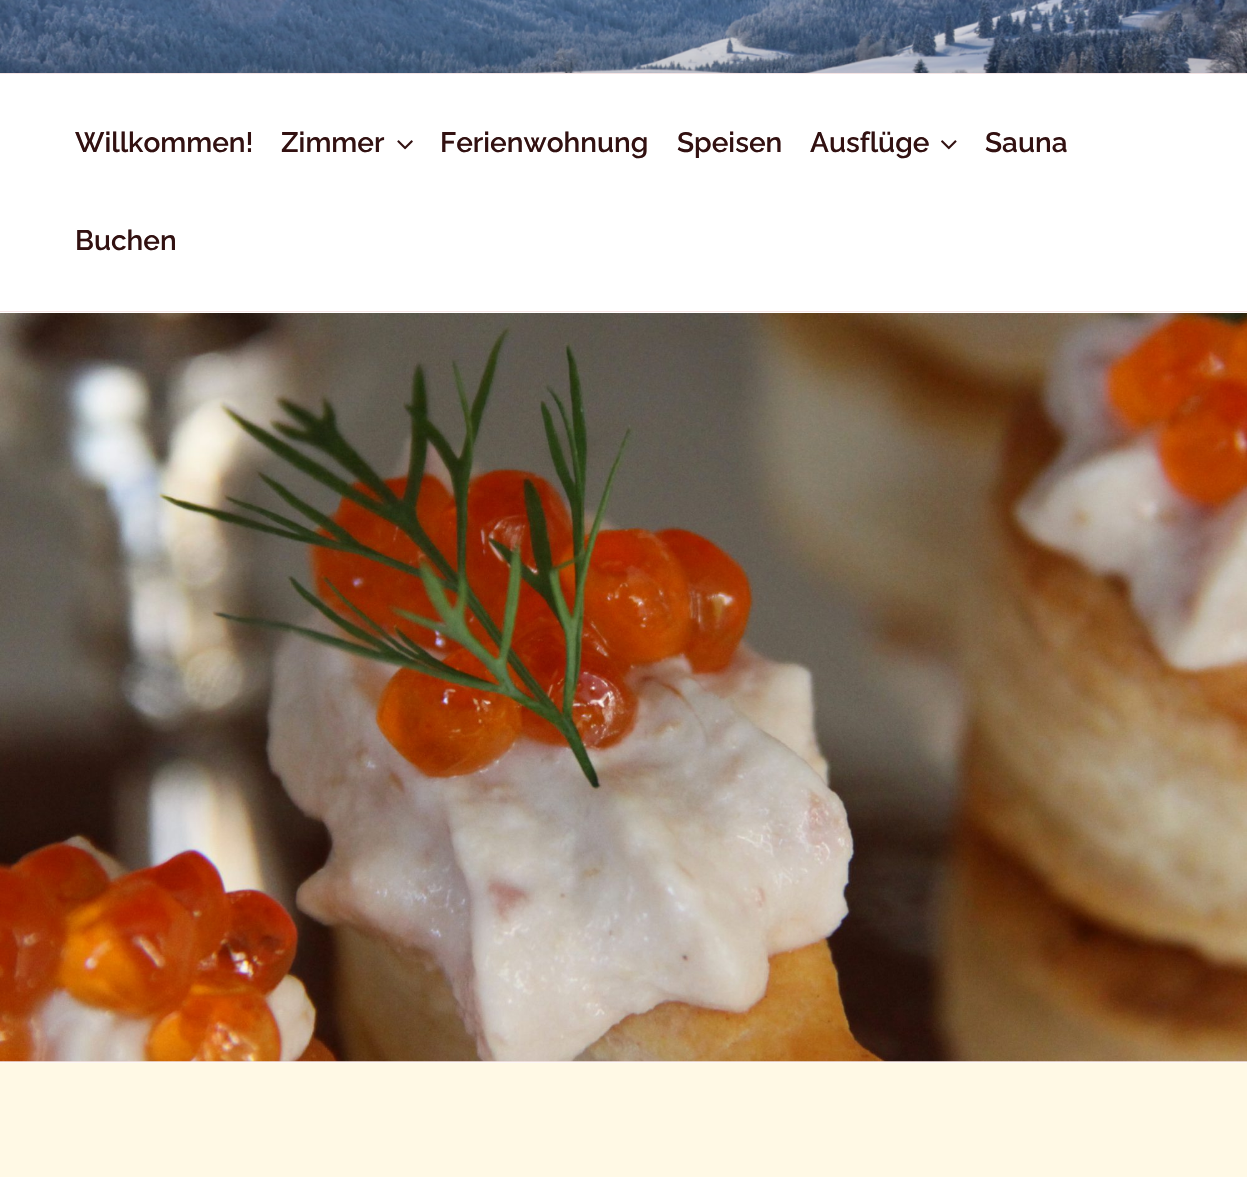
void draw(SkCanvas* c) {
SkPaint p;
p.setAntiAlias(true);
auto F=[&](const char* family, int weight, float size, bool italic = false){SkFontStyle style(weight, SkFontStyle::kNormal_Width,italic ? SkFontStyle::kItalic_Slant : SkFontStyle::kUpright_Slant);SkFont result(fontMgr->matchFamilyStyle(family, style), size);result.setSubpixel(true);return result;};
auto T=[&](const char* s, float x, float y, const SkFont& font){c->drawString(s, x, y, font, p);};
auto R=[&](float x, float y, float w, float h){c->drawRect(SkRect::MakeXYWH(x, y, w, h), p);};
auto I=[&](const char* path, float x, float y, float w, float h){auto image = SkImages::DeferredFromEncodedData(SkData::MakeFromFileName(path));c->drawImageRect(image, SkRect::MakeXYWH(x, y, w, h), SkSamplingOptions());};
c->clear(0xfffcf7f7);
I("1.png",0,0,1247,73);
{
const SkColor colors[] = {0x00000000,0x4d000000,0x4d000000};
const float stops[] = {0,.75,1};
const SkPoint ends[] = {{624,0}, {624,313}};
p.setShader(SkGradientShader::MakeLinear(ends, colors, stops, 3, SkTileMode::kClamp));
p.setAlpha(255);
}
R(0,17,1247,56);
p.setShader(nullptr);
p.setColor(0xffffffff);
R(0,74,1247,239);
p.setColor(0xfff6e4e4);
R(0,73,1247,1);
R(0,311,1247,1);
auto f1 = F("Raleway",600,28);
p.setColor(0xff321111);
T("Willkommen!",75,152,f1);
T("Zimmer",281,152,f1);
I("2.png",397,140,16,10);
T("Ferienwohnung",440,152,f1);
T("Speisen",677,152,f1);
T("Ausflüge",810,152,f1);
I("3.png",941,140,16,10);
T("Sauna",985,152,f1);
T("Buchen",75,250,f1);
p.setColor(0xfff6e4e4);
R(0,1061,1247,1);
I("4.png",0,313,1247,749);
p.setColor(0xfffff9e5);
R(0,1063,1247,114);
}
